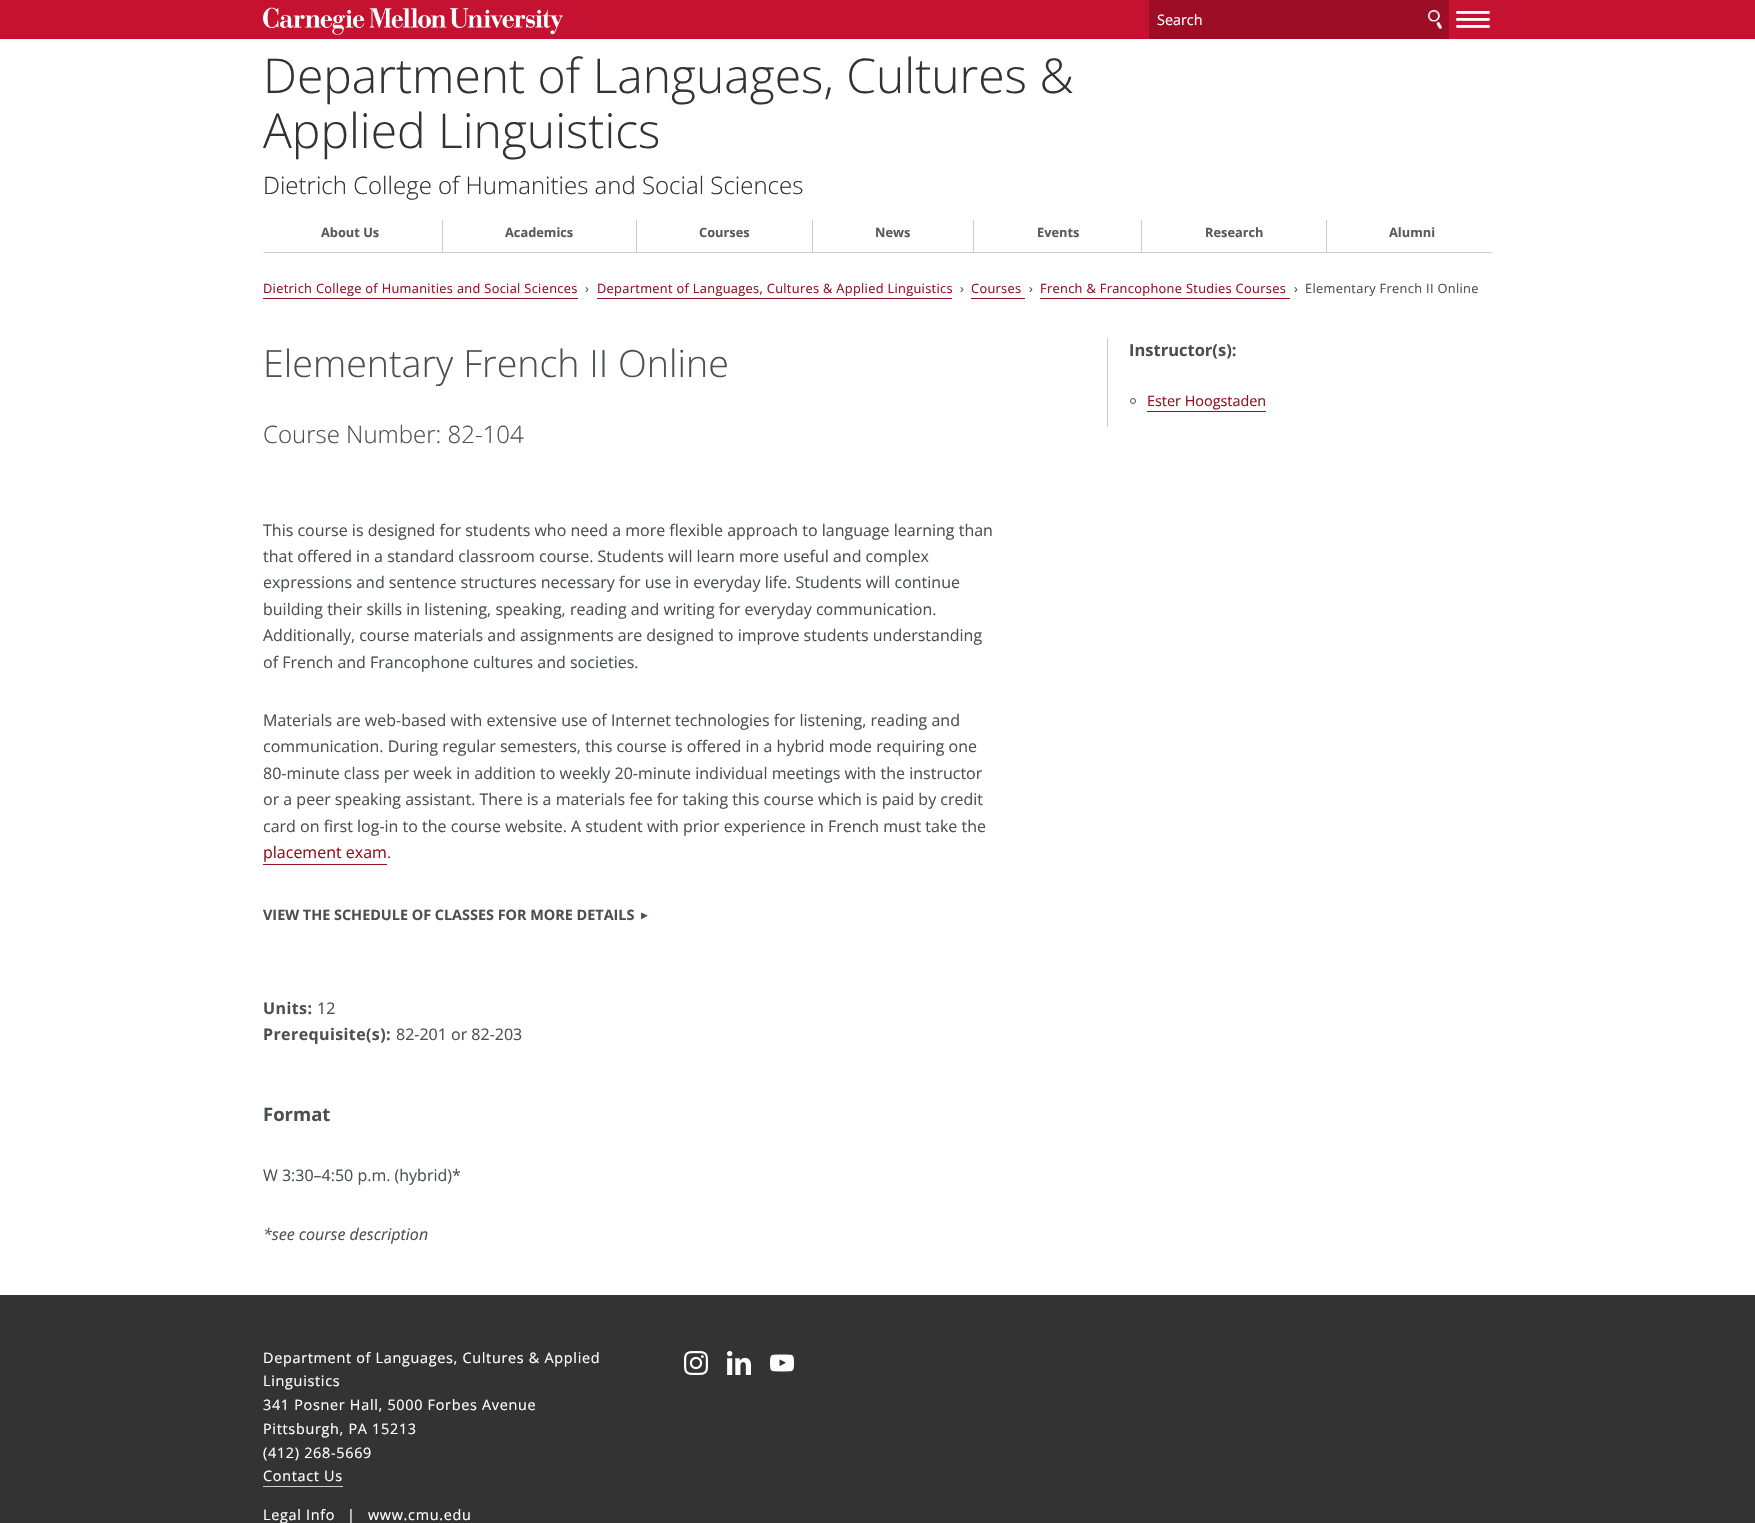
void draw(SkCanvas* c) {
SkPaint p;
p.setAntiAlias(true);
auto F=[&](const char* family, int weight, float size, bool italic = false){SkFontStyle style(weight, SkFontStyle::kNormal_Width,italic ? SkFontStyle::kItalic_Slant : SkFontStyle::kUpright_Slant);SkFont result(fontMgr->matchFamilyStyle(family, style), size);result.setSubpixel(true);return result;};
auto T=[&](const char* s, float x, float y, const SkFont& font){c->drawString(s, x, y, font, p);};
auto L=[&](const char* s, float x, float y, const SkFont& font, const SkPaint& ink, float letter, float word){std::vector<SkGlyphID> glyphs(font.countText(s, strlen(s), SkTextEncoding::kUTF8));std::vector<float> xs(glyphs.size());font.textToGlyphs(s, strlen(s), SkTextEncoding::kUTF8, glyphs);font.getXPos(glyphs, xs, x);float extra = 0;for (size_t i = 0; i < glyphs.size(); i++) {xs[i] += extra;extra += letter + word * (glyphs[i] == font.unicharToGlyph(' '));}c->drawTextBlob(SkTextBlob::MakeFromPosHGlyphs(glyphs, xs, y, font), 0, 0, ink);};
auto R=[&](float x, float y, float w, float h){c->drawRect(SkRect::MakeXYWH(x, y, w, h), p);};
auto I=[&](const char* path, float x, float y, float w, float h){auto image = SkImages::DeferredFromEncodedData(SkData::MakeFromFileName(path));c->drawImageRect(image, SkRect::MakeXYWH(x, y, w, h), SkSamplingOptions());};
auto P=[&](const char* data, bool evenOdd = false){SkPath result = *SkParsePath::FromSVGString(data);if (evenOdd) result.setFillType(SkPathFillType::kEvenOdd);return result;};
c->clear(0xffffffff);
p.setColor(0xffc41230);
R(0,0,1755,39);
I("1.png",263,7,300,28);
p.setColor(0xff9d0e26);
R(1149,0,300,39);
auto f1 = F("Open Sans",400,14.4);
p.setColor(0xffffffff);
T("Search",1157,25,f1);
I("2.png",1428,10,14,19);
auto f2 = F("Open Sans",400,36);
L("—",1455,22,f2,p,1,0);
L("—",1455,29,f2,p,1,0);
L("—",1455,36,f2,p,1,0);
auto f3 = F("Open Sans",300,48);
p.setColor(0xff333333);
T("Department of Languages, Cultures &",263,93,f3);
T("Applied Linguistics",263,148,f3);
auto f4 = F("Open Sans",300,24);
T("Dietrich College of Humanities and Social Sciences",263,194,f4);
p.setColor(0xffcccccc);
c->drawPath(P("M442 253h-179l1-1h178z"),p);
auto f5 = F("Open Sans",700,12.8);
p.setColor(0xff595959);
T("About Us",321,237,f5);
p.setColor(0xffcccccc);
c->drawPath(P("M636 253h-194l1-1h193z"),p);
p.setColor(0x33000000);
c->drawPath(P("M442 253v-33h1v32z"),p);
p.setColor(0xff595959);
T("Academics",505,237,f5);
p.setColor(0xffcccccc);
c->drawPath(P("M812 253h-176l1-1h175z"),p);
p.setColor(0x33000000);
c->drawPath(P("M636 253v-33h1v32z"),p);
p.setColor(0xff595959);
T("Courses",699,237,f5);
p.setColor(0xffcccccc);
c->drawPath(P("M973 253h-161l1-1h160z"),p);
p.setColor(0x33000000);
c->drawPath(P("M812 253v-33h1v32z"),p);
p.setColor(0xff595959);
T("News",875,237,f5);
p.setColor(0xffcccccc);
c->drawPath(P("M1141 253h-168l1-1h167z"),p);
p.setColor(0x33000000);
c->drawPath(P("M973 253v-33h1v32z"),p);
p.setColor(0xff595959);
T("Events",1037,237,f5);
p.setColor(0xffcccccc);
c->drawPath(P("M1326 253h-185l1-1h184z"),p);
p.setColor(0x33000000);
c->drawPath(P("M1141 253v-33h1v32z"),p);
p.setColor(0xff595959);
T("Research",1205,237,f5);
p.setColor(0xffcccccc);
c->drawPath(P("M1492 253h-166l1-1h165z"),p);
p.setColor(0x33000000);
c->drawPath(P("M1326 253v-33h1v32z"),p);
p.setColor(0xff595959);
T("Alumni",1389,237,f5);
auto f6 = F("Open Sans",400,12.8);
p.setColor(0xff941120);
L("Dietrich College of Humanities and Social Sciences",263,293,f6,p,.32,0);
R(263,298,315,1);
p.setColor(0xff4d5051);
L("›",585,293,f6,p,.32,0);
p.setColor(0xff941120);
L("Department of Languages, Cultures & Applied Linguistics",597,293,f6,p,.32,0);
R(597,298,355,1);
p.setColor(0xff4d5051);
L("›",960,293,f6,p,.32,0);
p.setColor(0xff941120);
L("Courses",971,293,f6,p,.32,0);
R(971,298,54,1);
p.setColor(0xff4d5051);
L("›",1029,293,f6,p,.32,0);
p.setColor(0xff941120);
L("French & Francophone Studies Courses",1040,293,f6,p,.32,0);
R(1040,298,250,1);
p.setColor(0xff4d5051);
L("›",1294,293,f6,p,.32,0);
L("Elementary French II Online",1305,293,f6,p,.32,0);
auto f7 = F("Open Sans",300,37.6);
T("Elementary French II Online",263,377,f7);
T("Course Number: 82-104",263,443,f4);
auto f8 = F("Open Sans",400,16);
T("This course is designed for students who need a more flexible approach to language learning than",263,536,f8);
T("that offered in a standard classroom course. Students will learn more useful and complex",263,562,f8);
T("expressions and sentence structures necessary for use in everyday life. Students will continue",263,588,f8);
T("building their skills in listening, speaking, reading and writing for everyday communication.",263,615,f8);
T("Additionally, course materials and assignments are designed to improve students understanding",263,641,f8);
T("of French and Francophone cultures and societies.",263,668,f8);
T("Materials are web-based with extensive use of Internet technologies for listening, reading and",263,726,f8);
T("communication. During regular semesters, this course is offered in a hybrid mode requiring one",263,752,f8);
T("80-minute class per week in addition to weekly 20-minute individual meetings with the instructor",263,779,f8);
T("or a peer speaking assistant. There is a materials fee for taking this course which is paid by credit",263,805,f8);
T("card on first log-in to the course website. A student with prior experience in French must take the",263,832,f8);
p.setColor(0xff941120);
T("placement exam",263,858,f8);
R(263,864,124,1);
p.setColor(0xff4d5051);
T(".",387,858,f8);
auto f9 = F("Open Sans",700,14.4);
T("VIEW THE SCHEDULE OF CLASSES FOR MORE DETAILS",263,920,f9);
auto f10 = F("Liberation Sans",700,11);
T("►",639,919,f10);
auto f11 = F("Open Sans",700,16);
L("Units:",263,1014,f11,p,.4,0);
T("12",317,1014,f8);
L("Prerequisite(s):",263,1040,f11,p,.4,0);
T("82-201 or 82-203",396,1040,f8);
auto f12 = F("Open Sans",700,18.5);
T("Format",263,1121,f12);
T("W 3:30–4:50 p.m. (hybrid)*",263,1181,f8);
auto f13 = F("Open Sans",400,16,true);
T("*see course description",263,1240,f13);
p.setColor(0xffcccccc);
R(1107,338,1,89);
auto f14 = F("Open Sans",700,16.5);
p.setColor(0xff4d5051);
T("Instructor(s):",1129,356,f14);
p.setStroke(true);
p.setStrokeWidth(1);
c->drawCircle(1133,401,2.5,p);
p.setStroke(false);
p.setColor(0xff941120);
T("Ester Hoogstaden",1147,406,f1);
R(1147,411,119,1);
p.setColor(0xff333333);
R(0,1295,1755,228);
p.setColor(0xffffffff);
L("Department of Languages, Cultures & Applied",263,1363,f1,p,.7,0);
L("Linguistics",263,1386,f1,p,.7,0);
L("341 Posner Hall, 5000 Forbes Avenue",263,1410,f1,p,.7,0);
L("Pittsburgh, PA 15213",263,1434,f1,p,.7,0);
L("(412) 268-5669",263,1458,f1,p,.7,0);
L("Contact Us",263,1481,f1,p,.7,0);
p.setColor(0xffcccccc);
R(263,1486,80,1);
p.setColor(0xffffffff);
L("Legal Info",263,1520,f1,p,.7,0);
L("|",347,1520,f1,p,.7,0);
L("www.cmu.edu",368,1520,f1,p,.7,0);
I("3.png",684,1351,24,24);
I("4.png",727,1351,24,24);
I("5.png",770,1354,24,18);
}
